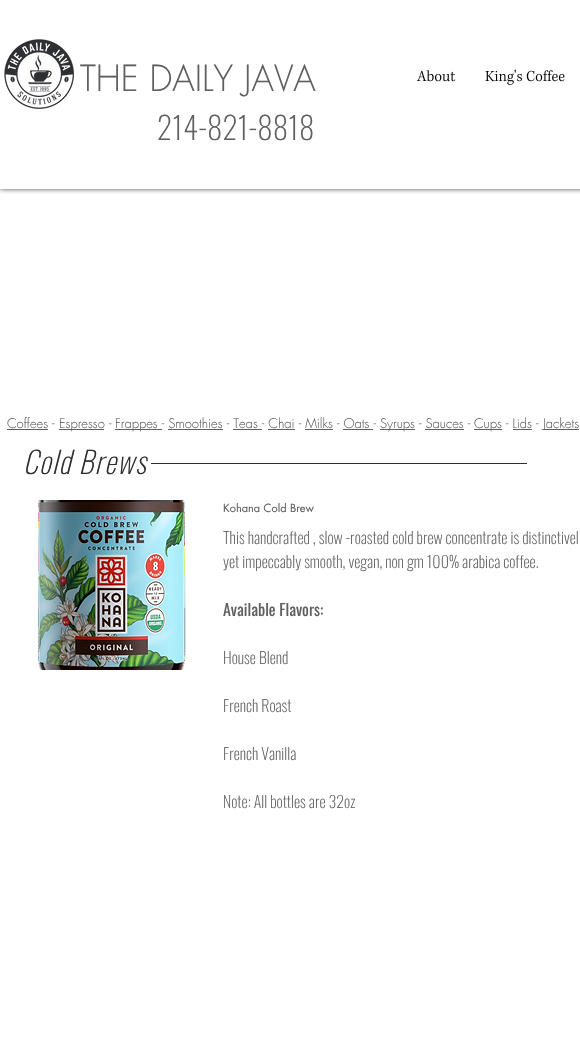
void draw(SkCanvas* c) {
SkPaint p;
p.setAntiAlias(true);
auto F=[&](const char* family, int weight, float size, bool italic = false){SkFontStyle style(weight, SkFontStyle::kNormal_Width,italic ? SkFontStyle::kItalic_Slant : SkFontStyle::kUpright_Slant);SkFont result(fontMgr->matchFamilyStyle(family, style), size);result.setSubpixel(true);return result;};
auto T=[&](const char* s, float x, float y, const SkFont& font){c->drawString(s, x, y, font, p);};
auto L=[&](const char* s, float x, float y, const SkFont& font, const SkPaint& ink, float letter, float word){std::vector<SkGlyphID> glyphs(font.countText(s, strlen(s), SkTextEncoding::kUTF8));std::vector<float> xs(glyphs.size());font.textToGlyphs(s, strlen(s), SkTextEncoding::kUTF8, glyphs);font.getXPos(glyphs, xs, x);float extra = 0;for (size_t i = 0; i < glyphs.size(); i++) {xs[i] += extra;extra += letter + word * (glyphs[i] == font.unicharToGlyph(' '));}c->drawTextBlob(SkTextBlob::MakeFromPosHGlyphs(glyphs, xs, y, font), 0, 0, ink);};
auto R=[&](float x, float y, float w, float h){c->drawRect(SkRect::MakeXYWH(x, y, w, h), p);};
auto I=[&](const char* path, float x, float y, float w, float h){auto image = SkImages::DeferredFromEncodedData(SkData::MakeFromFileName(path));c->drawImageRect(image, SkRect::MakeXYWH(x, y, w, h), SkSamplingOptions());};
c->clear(0xffffffff);
c->save();
c->clipRect(SkRect::MakeXYWH(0,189,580,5));
p.setColor(0xb3000000);
p.setMaskFilter(SkMaskFilter::MakeBlur(kNormal_SkBlurStyle, 2.5));
c->drawRect(SkRect::MakeXYWH(0,0,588,189),p);
p.setMaskFilter(nullptr);
c->restore();
I("1.png",4,39,71,70);
auto f1 = F("futura",300,35);
p.setColor(0xff605e5e);
T("THE DAILY JAVA",80,91,f1);
I("2.png",416,70,40,12);
I("3.png",485,69,80,16);
auto f2 = F("Oswald",200,31);
T("214-821-8818",157,140,f2);
auto f3 = F("futura",300,13);
T("Coffees -",7,428,f3);
R(7,429,41,1);
R(59,429,45,1);
T("Espresso -",59,428,f3);
R(115,429,47,1);
T("Frappes - Smoothies - Teas - Chai - Milks - Oats -",115,428,f3);
R(168,429,55,1);
R(233,429,29,1);
R(268,429,27,1);
R(305,429,28,1);
R(343,429,30,1);
R(380,429,35,1);
T("Syrups - Sauces -",380,428,f3);
R(425,429,39,1);
R(474,429,28,1);
T("Cups - Lids -",474,428,f3);
R(513,429,19,1);
R(543,429,36,1);
T("Jackets",543,428,f3);
auto f4 = F("Oswald",200,30,true);
p.setColor(0xff2f2e2e);
L("Cold Brews",23,474,f4,p,1.25,0);
R(151,463,376,1);
I("4.png",38,500,148,170);
auto f5 = F("futura",400,11);
p.setColor(0xff605e5e);
T("Kohana Cold Brew",223,512,f5);
auto f6 = F("Oswald",200,16);
T("This handcrafted , slow -roasted cold brew concentrate is distinctivel",223,544,f6);
T("yet impeccably smooth, vegan, non gm 100% arabica coffee.",223,568,f6);
auto f7 = F("Oswald",400,16);
T("Available Flavors:",223,616,f7);
T("House Blend",223,664,f6);
T("French Roast",223,712,f6);
T("French Vanilla",223,760,f6);
T("Note: All bottles are 32oz",223,808,f6);
}
